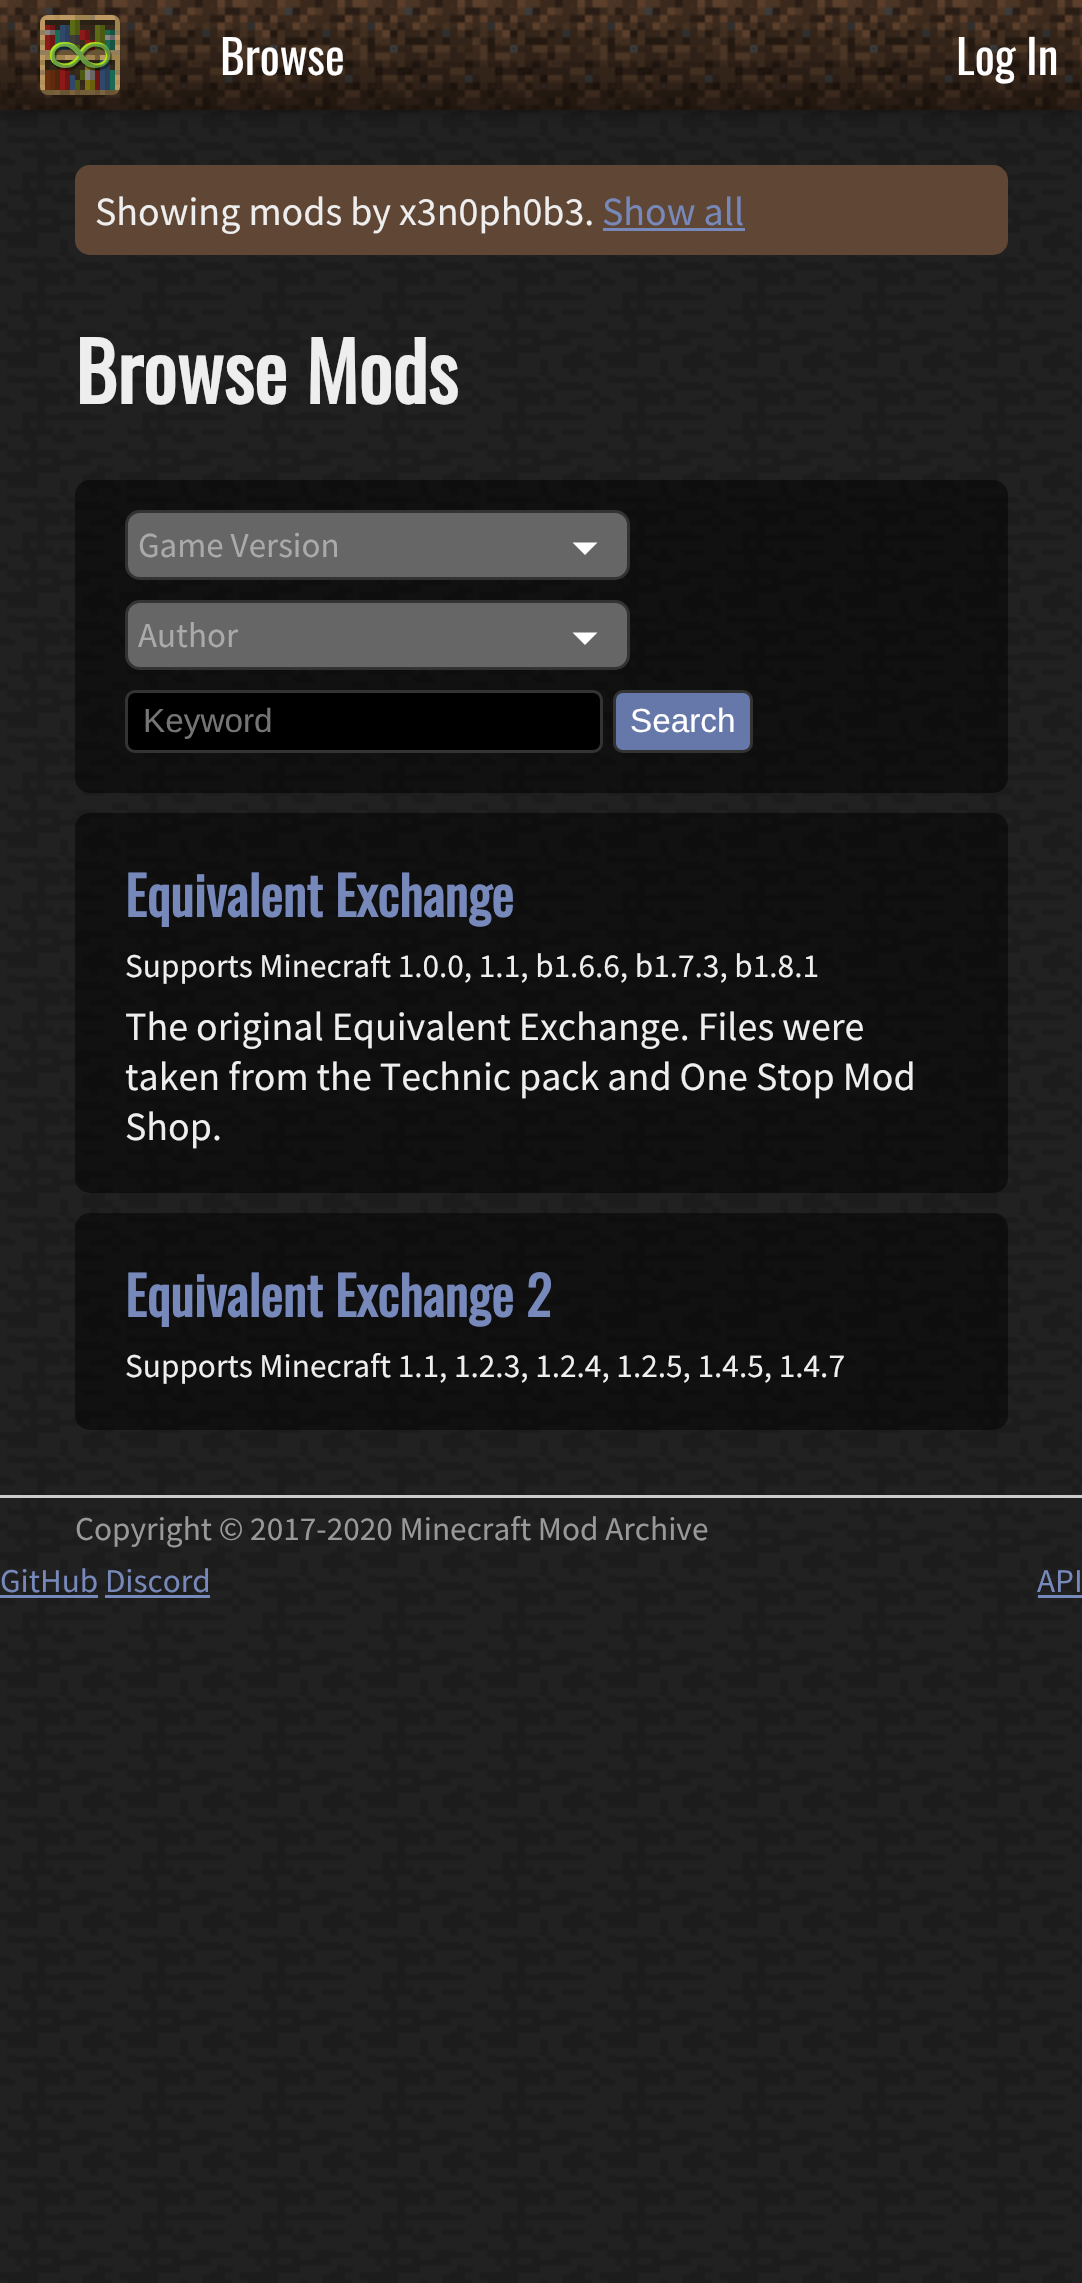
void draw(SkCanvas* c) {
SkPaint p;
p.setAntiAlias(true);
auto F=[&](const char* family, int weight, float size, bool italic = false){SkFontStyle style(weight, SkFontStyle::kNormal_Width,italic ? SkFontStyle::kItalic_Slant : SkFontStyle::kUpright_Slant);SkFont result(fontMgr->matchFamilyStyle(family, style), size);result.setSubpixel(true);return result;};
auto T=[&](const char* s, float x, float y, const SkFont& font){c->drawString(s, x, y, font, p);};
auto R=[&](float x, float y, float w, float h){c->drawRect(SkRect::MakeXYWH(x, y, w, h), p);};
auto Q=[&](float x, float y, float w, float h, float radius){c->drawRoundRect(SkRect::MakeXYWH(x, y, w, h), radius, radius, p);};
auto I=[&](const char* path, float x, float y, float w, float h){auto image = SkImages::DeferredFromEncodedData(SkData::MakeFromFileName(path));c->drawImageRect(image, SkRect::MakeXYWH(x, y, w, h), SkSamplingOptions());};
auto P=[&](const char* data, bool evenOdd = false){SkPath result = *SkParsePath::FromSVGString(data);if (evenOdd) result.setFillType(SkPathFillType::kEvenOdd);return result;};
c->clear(0xffffffff);
I("1.png",0,110,1082,2173);
p.setColor(0x47000000);
p.setMaskFilter(SkMaskFilter::MakeBlur(kNormal_SkBlurStyle, 5));
c->drawRect(SkRect::MakeXYWH(0,3,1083,110),p);
p.setMaskFilter(nullptr);
I("2.png",0,0,1082,110);
I("3.png",40,15,80,80);
auto f1 = F("Oswald",400,47);
p.setColor(0xffffffff);
T("Browse",220,75,f1);
T("Log In",956,75,f1);
p.setColor(0xff604735);
Q(75,165,933,90,15);
auto f2 = F("Source Sans Pro",400,40);
p.setColor(0xffeeeeee);
T("Showing mods by x3n0ph0b3.",95,225,f2);
p.setColor(0xff7788bb);
T("Show all",602,225,f2);
R(603,228,142,3);
auto f3 = F("Oswald",700,80);
p.setColor(0xffeeeeee);
T("Browse Mods",75,404,f3);
p.setColor(0x80000000);
Q(75,480,933,313,15);
p.setColor(0xff666666);
c->drawRoundRect(SkRect::MakeXYWH(126.5,511.5,502,67),13.5,13.5,p);
p.setStroke(true);
p.setStrokeWidth(3);
p.setColor(0xff333333);
c->drawRoundRect(SkRect::MakeXYWH(126.5,511.5,502,67),13.5,13.5,p);
auto f4 = F("Source Sans Pro",400,35);
p.setStroke(false);
p.setColor(0xffaaaaaa);
T("Game Version",138,557,f4);
p.setColor(0xffffffff);
c->drawPath(P("M572.5 542.5h25l-12.5 12.5z"),p);
p.setColor(0xff666666);
c->drawRoundRect(SkRect::MakeXYWH(126.5,601.5,502,67),13.5,13.5,p);
p.setStroke(true);
p.setColor(0xff333333);
c->drawRoundRect(SkRect::MakeXYWH(126.5,601.5,502,67),13.5,13.5,p);
p.setStroke(false);
p.setColor(0xffaaaaaa);
T("Author",138,647,f4);
p.setColor(0xffffffff);
c->drawPath(P("M572.5 632.5h25l-12.5 12.5z"),p);
p.setColor(0xff000000);
c->drawRoundRect(SkRect::MakeXYWH(126.5,691.5,475,60),8.5,8.5,p);
p.setStroke(true);
p.setColor(0xff333333);
c->drawRoundRect(SkRect::MakeXYWH(126.5,691.5,475,60),8.5,8.5,p);
auto f5 = F("Liberation Sans",400,33.3);
p.setStroke(false);
p.setColor(0xff757575);
T("Keyword",143,732,f5);
p.setColor(0xff6677aa);
c->drawRoundRect(SkRect::MakeXYWH(614.5,691.5,137,60),8.5,8.5,p);
p.setStroke(true);
p.setColor(0xff333333);
c->drawRoundRect(SkRect::MakeXYWH(614.5,691.5,137,60),8.5,8.5,p);
p.setStroke(false);
p.setColor(0xffffffff);
T("Search",630,732,f5);
p.setColor(0x80000000);
Q(75,813,933,380,15);
auto f6 = F("Oswald",700,53.25);
p.setColor(0xff7788bb);
T("Equivalent Exchange",125,917,f6);
auto f7 = F("Source Sans Pro",400,33.3);
p.setColor(0xffeeeeee);
T("Supports Minecraft 1.0.0, 1.1, b1.6.6, b1.7.3, b1.8.1",125,977,f7);
T("The original Equivalent Exchange. Files were",125,1040,f2);
T("taken from the Technic pack and One Stop Mod",125,1090,f2);
T("Shop.",125,1140,f2);
p.setColor(0x80000000);
Q(75,1213,933,217,15);
p.setColor(0xff7788bb);
T("Equivalent Exchange 2",125,1317,f6);
p.setColor(0xffeeeeee);
T("Supports Minecraft 1.1, 1.2.3, 1.2.4, 1.2.5, 1.4.5, 1.4.7",125,1377,f7);
p.setColor(0xffcccccc);
R(0,1495,1082,3);
p.setColor(0xff999999);
T("Copyright © 2017-2020 Minecraft Mod Archive",75,1540,f7);
p.setColor(0xff7788bb);
T("GitHub Discord",0,1592,f7);
R(0,1595,98,3);
T("API",1037,1592,f7);
R(1038,1595,44,3);
R(105,1595,105,3);
}
